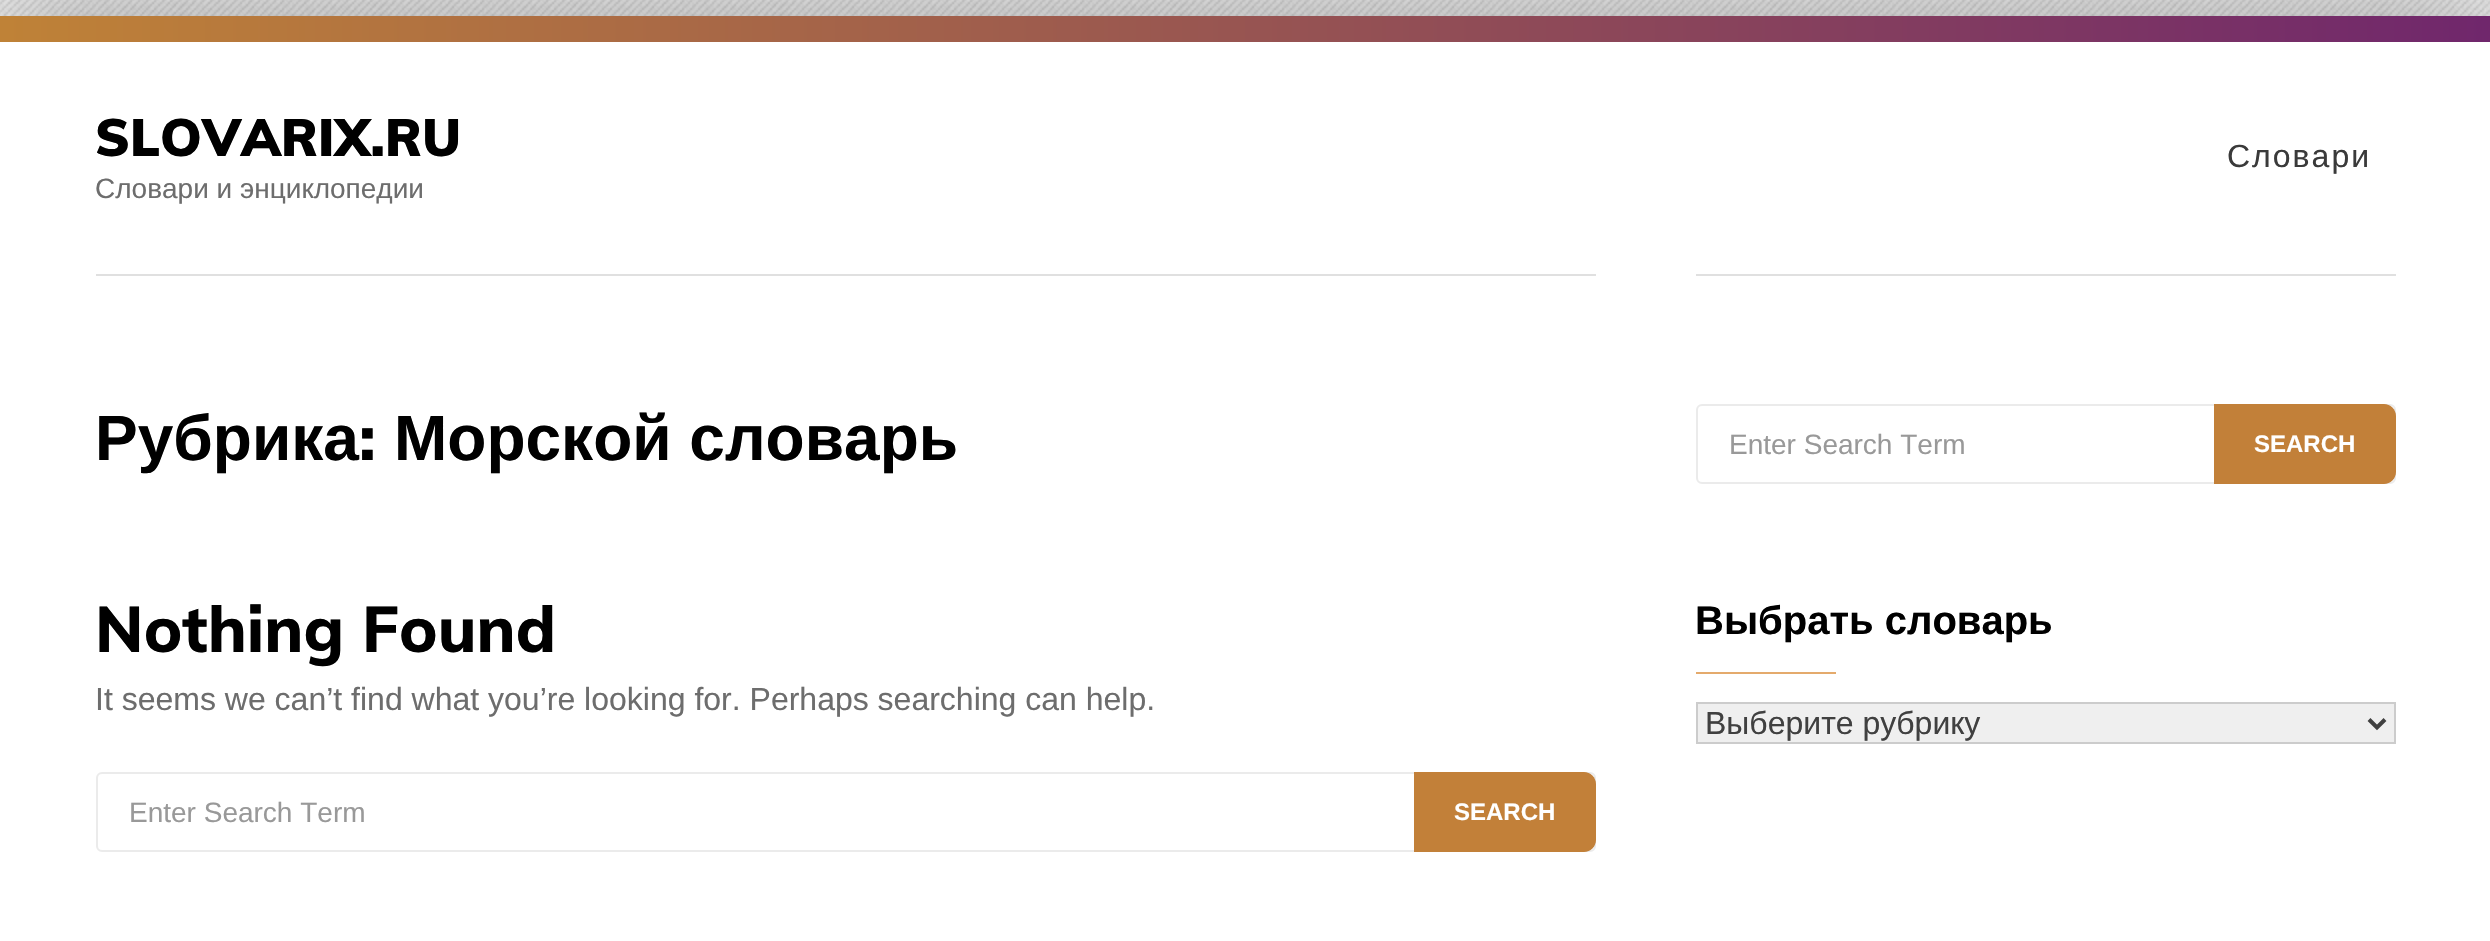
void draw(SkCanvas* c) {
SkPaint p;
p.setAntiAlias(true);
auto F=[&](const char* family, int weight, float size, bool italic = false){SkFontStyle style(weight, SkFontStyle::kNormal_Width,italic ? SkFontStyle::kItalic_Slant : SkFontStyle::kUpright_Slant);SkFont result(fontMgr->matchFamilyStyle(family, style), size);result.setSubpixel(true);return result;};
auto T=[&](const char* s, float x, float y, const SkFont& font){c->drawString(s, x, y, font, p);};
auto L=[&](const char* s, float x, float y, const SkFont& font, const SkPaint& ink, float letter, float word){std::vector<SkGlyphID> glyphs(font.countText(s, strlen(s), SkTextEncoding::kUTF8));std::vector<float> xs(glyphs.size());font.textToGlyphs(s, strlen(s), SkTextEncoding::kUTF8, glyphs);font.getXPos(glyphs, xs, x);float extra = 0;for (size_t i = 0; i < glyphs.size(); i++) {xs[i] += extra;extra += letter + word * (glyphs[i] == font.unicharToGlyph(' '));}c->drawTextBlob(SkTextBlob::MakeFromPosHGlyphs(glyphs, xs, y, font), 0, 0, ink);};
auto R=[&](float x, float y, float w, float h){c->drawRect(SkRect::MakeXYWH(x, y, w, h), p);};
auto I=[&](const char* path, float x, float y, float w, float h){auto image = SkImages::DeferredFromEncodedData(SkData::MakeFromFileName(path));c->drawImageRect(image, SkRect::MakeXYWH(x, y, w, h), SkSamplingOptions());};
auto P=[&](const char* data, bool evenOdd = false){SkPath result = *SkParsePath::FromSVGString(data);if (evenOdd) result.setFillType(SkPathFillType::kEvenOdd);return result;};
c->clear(0xffffffff);
I("1.png",0,0,2490,16);
p.setColor(0x4d000000);
p.setMaskFilter(SkMaskFilter::MakeBlur(kNormal_SkBlurStyle, 50));
c->drawRect(SkRect::MakeXYWH(0,16,2490,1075),p);
p.setMaskFilter(nullptr);
p.setColor(0xffffffff);
R(0,42,2490,899);
{
const SkColor colors[] = {0xffbf8237,0xff70276c};
const float stops[] = {0,1};
const SkPoint ends[] = {{0,29}, {2490,29}};
p.setShader(SkGradientShader::MakeLinear(ends, colors, stops, 2, SkTileMode::kClamp));
p.setAlpha(255);
}
R(0,16,2490,26);
auto f1 = F("Muli",900,52);
p.setShader(nullptr);
p.setColor(0xff000000);
T("SLOVARIX.RU",95,156,f1);
auto f2 = F("Liberation Sans",400,28);
p.setColor(0xff6d6d6d);
T("Словари и энциклопедии",95,198,f2);
auto f3 = F("Liberation Sans",400,32);
p.setColor(0xff3a3a3a);
L("Словари",2227,167,f3,p,2,0);
p.setColor(0xffe0e0e0);
R(96,274,1500,2);
auto f4 = F("Liberation Sans",700,64);
p.setColor(0xff000000);
T("Рубрика",95,460,f4);
auto f5 = F("Muli",800,64);
T(":",359,460,f5);
T("Морской словарь",394,460,f4);
T("Nothing Found",95,652,f5);
p.setColor(0xff6d6d6d);
T("It seems we can’t find what you’re looking for. Perhaps searching can help.",95,710,f3);
p.setStroke(true);
p.setStrokeWidth(2);
p.setColor(0xffebebeb);
c->drawRoundRect(SkRect::MakeXYWH(97,773,1498,78),5,5,p);
p.setStroke(false);
p.setColor(0xff999999);
T("Enter Search Term",129,822,f2);
p.setColor(0xffc28039);
c->drawPath(P("M1414 772h170c6.5 0 12 5.5 12 12v56c0 6.5-5.5 12-12 12h-170z"),p);
auto f6 = F("Liberation Sans",700,24);
p.setColor(0xffffffff);
T("SEARCH",1454,820,f6);
p.setColor(0xffe0e0e0);
R(1696,274,700,2);
p.setStroke(true);
p.setColor(0xffebebeb);
c->drawRoundRect(SkRect::MakeXYWH(1697,405,698,78),5,5,p);
p.setStroke(false);
p.setColor(0xff999999);
T("Enter Search Term",1729,454,f2);
p.setColor(0xffc28039);
c->drawPath(P("M2214 404h170c6.5 0 12 5.5 12 12v56c0 6.5-5.5 12-12 12h-170z"),p);
p.setColor(0xffffffff);
T("SEARCH",2254,452,f6);
auto f7 = F("Liberation Sans",700,40);
p.setColor(0xff000000);
T("Выбрать словарь",1695,634,f7);
p.setColor(0xffe4aa6c);
R(1696,672,140,2);
p.setColor(0xffefefef);
c->drawRect(SkRect::MakeXYWH(1697,703,698,40),p);
p.setStroke(true);
p.setColor(0xffcccccc);
c->drawRect(SkRect::MakeXYWH(1697,703,698,40),p);
p.setStrokeWidth(4);
p.setColor(0xff404040);
c->drawPath(P("M2369 719.5l8 8l8-8"),p);
p.setStroke(false);
T("Выберите рубрику",1705,734,f3);
}
